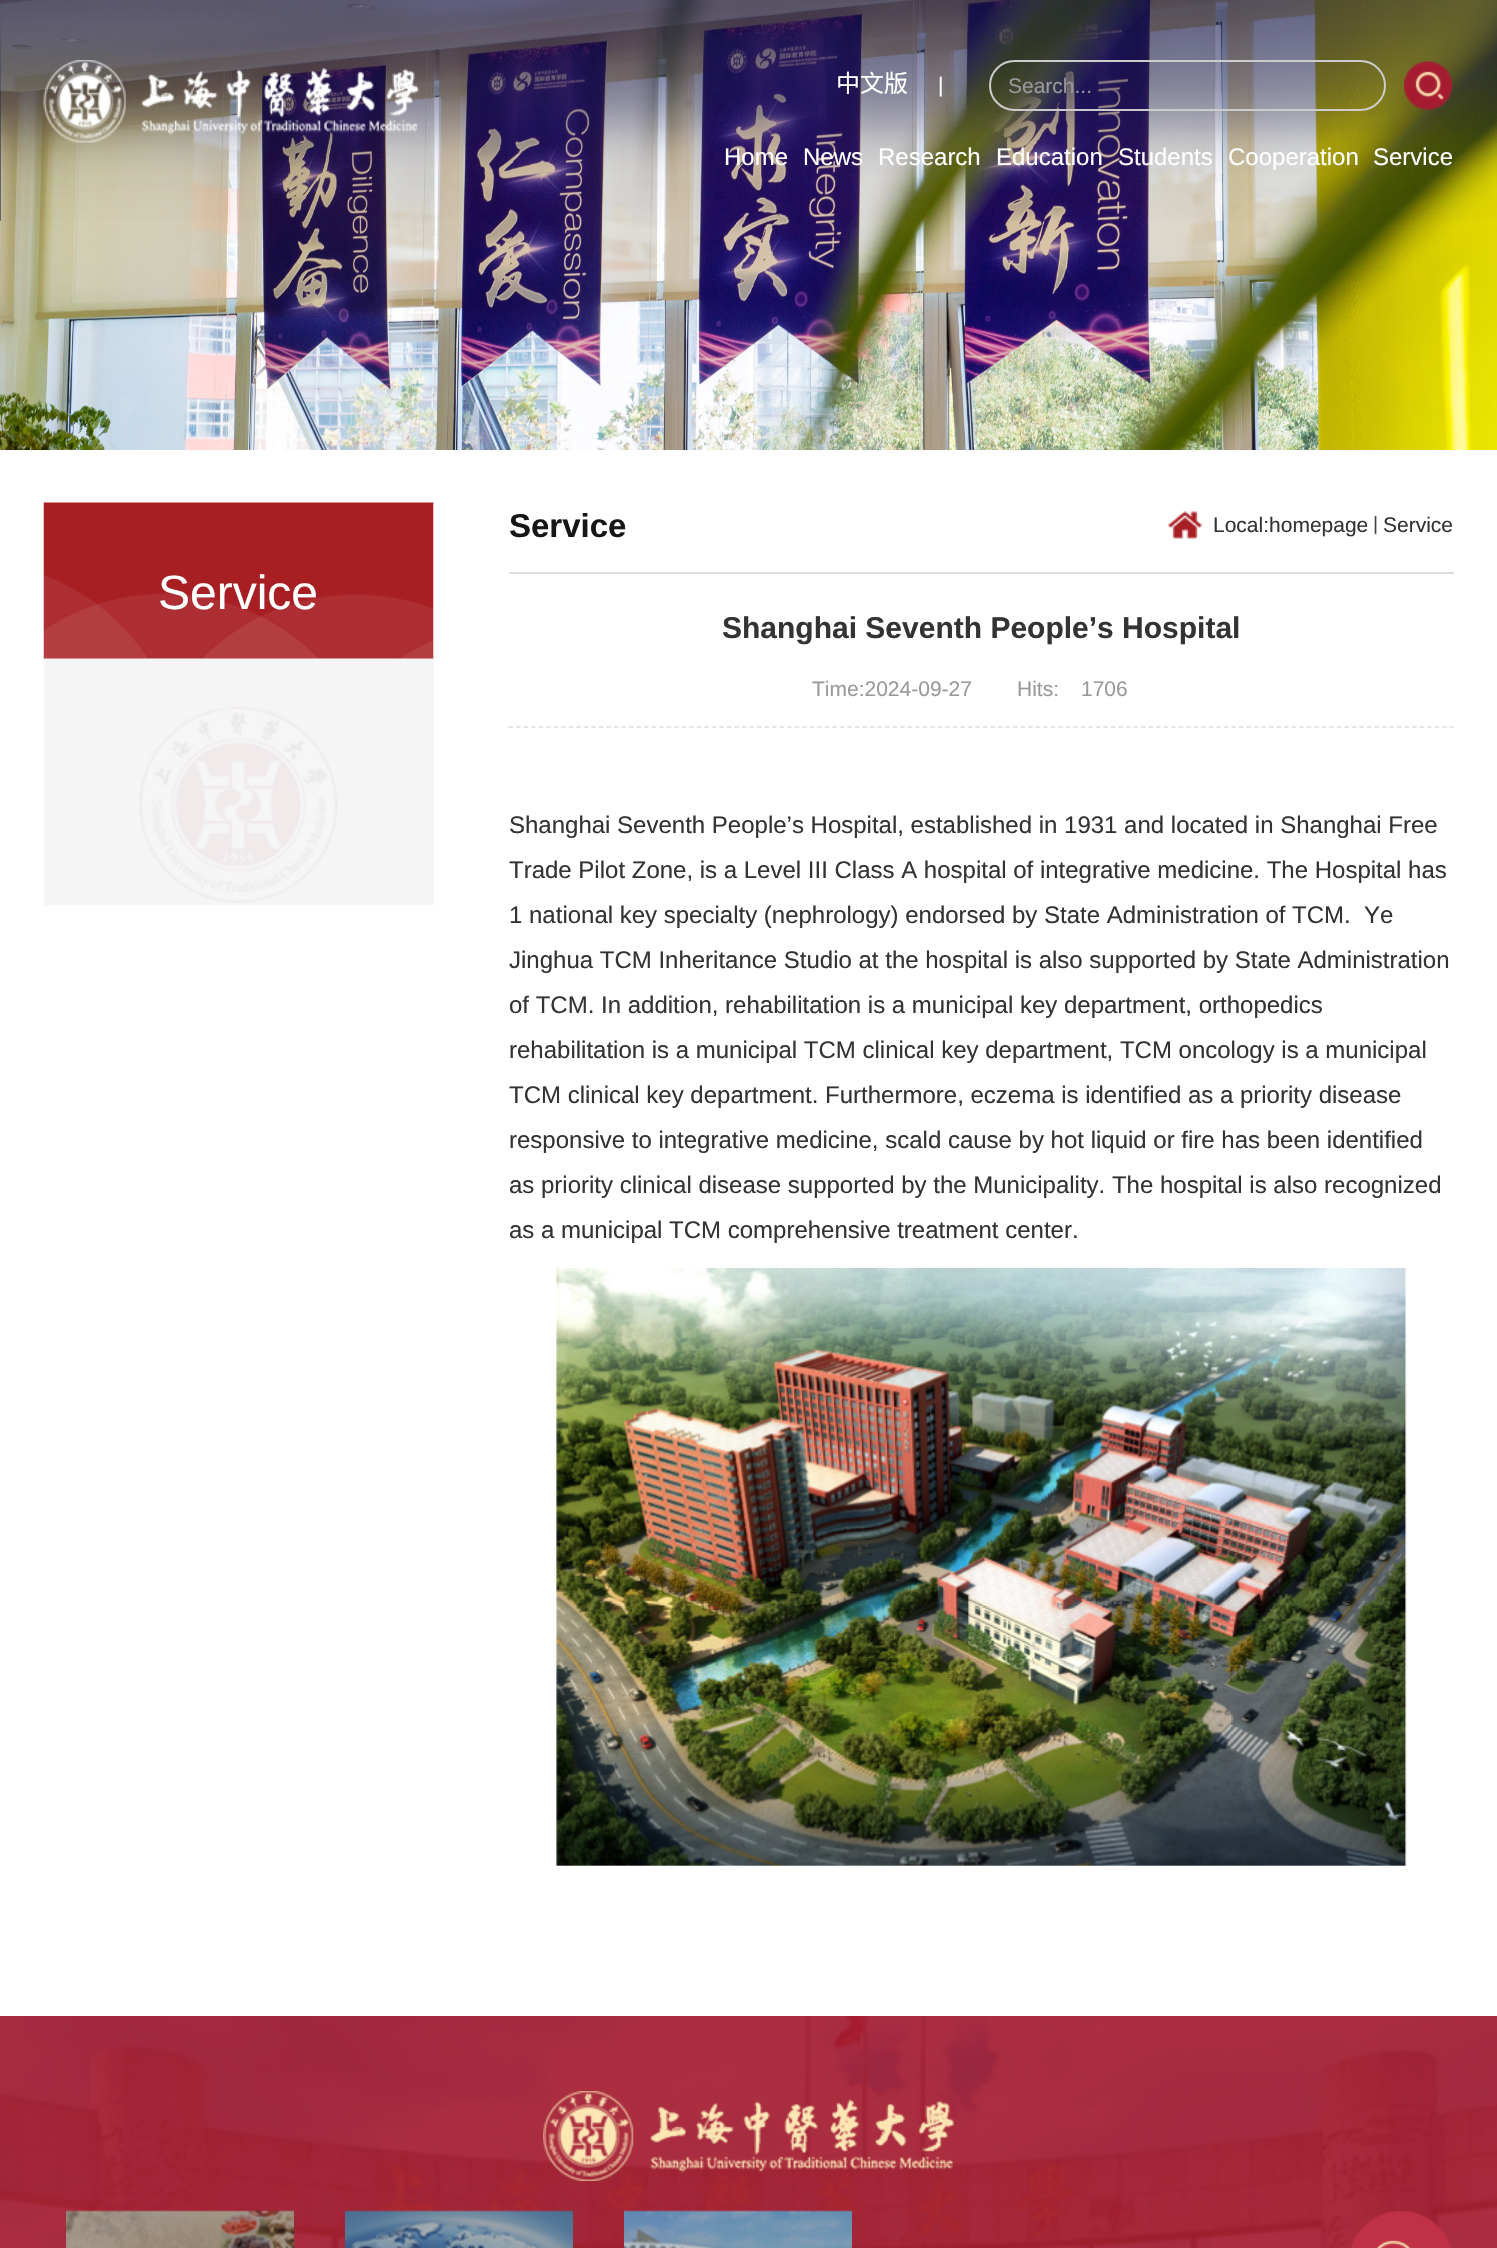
void draw(SkCanvas* c) {
SkPaint p;
p.setAntiAlias(true);
auto F=[&](const char* family, int weight, float size, bool italic = false){SkFontStyle style(weight, SkFontStyle::kNormal_Width,italic ? SkFontStyle::kItalic_Slant : SkFontStyle::kUpright_Slant);SkFont result(fontMgr->matchFamilyStyle(family, style), size);result.setSubpixel(true);return result;};
auto T=[&](const char* s, float x, float y, const SkFont& font){c->drawString(s, x, y, font, p);};
auto R=[&](float x, float y, float w, float h){c->drawRect(SkRect::MakeXYWH(x, y, w, h), p);};
auto I=[&](const char* path, float x, float y, float w, float h){auto image = SkImages::DeferredFromEncodedData(SkData::MakeFromFileName(path));c->drawImageRect(image, SkRect::MakeXYWH(x, y, w, h), SkSamplingOptions());};
auto P=[&](const char* data, bool evenOdd = false){SkPath result = *SkParsePath::FromSVGString(data);if (evenOdd) result.setFillType(SkPathFillType::kEvenOdd);return result;};
c->clear(0xffffffff);
I("1.png",0,0,1497,450);
I("2.png",0,0,1497,221);
I("3.png",43,60,376,83);
auto f1 = F("Noto Sans CJK SC",400,24);
p.setColor(0xffffffff);
T("中文版",836,92,f1);
auto f2 = F("Liberation Sans",400,21);
T("|",938,92,f2);
p.setStroke(true);
p.setStrokeWidth(2);
p.setColor(0xffcccccc);
c->drawRoundRect(SkRect::MakeXYWH(990,61,395,49),24.5,24.5,p);
p.setStroke(false);
p.setColor(0xff999999);
T("Search...",1008,93,f2);
I("4.png",1404,61,48,49);
auto f3 = F("Liberation Sans",400,24);
p.setColor(0xffffffff);
T("Home",724,165,f3);
T("News",803,165,f3);
T("Research",878,165,f3);
T("Education",996,165,f3);
T("Students",1118,165,f3);
T("Cooperation",1228,165,f3);
T("Service",1373,165,f3);
p.setColor(0xfff5f5f5);
R(44,503,390,402);
I("5.png",43,502,391,157);
auto f4 = F("Liberation Sans",400,48);
p.setColor(0xffffffff);
T("Service",158,609,f4);
I("6.png",139,706,199,197);
p.setColor(0xffdddddd);
R(509,572,945,2);
auto f5 = F("Liberation Sans",700,33);
p.setColor(0xff161616);
T("Service",509,537,f5);
I("7.png",1168,511,34,28);
p.setColor(0xff333333);
T("Local:homepage",1213,532,f2);
I("8.png",1374,515,3,20);
T("Service",1383,532,f2);
auto f6 = F("Liberation Sans",700,30);
T("Shanghai Seventh People’s Hospital",722,638,f6);
p.setColor(0xff999999);
T("Time:2024-09-27",812,696,f2);
T("Hits:",1017,696,f2);
T("1706",1081,696,f2);
p.setStroke(true);
p.setStrokeWidth(1.5);
p.setColor(0xffdddddd);
p.setPathEffect(SkDashPathEffect::Make({{4.5f,3.03f}}, 0));
c->drawPath(P("M508.5 727h945"),p);
p.setPathEffect(nullptr);
p.setStroke(false);
p.setColor(0xff333333);
T("Shanghai Seventh People’s Hospital, established in 1931 and located in Shanghai Free",509,833,f3);
T("Trade Pilot Zone, is a Level III Class A hospital of integrative medicine. The Hospital has",509,878,f3);
T("1 national key specialty (nephrology) endorsed by State Administration of TCM.  Ye",509,923,f3);
T("Jinghua TCM Inheritance Studio at the hospital is also supported by State Administration",509,968,f3);
T("of TCM. In addition, rehabilitation is a municipal key department, orthopedics",509,1013,f3);
T("rehabilitation is a municipal TCM clinical key department, TCM oncology is a municipal",509,1058,f3);
T("TCM clinical key department. Furthermore, eczema is identified as a priority disease",509,1103,f3);
T("responsive to integrative medicine, scald cause by hot liquid or fire has been identified",509,1148,f3);
T("as priority clinical disease supported by the Municipality. The hospital is also recognized",509,1193,f3);
T("as a municipal TCM comprehensive treatment center.",509,1238,f3);
I("9.png",556,1268,851,598);
I("10.png",0,2016,1497,232);
I("11.png",543,2091,411,90);
I("12.png",66,2210,228,38);
I("13.png",345,2210,228,38);
I("14.png",624,2210,228,38);
I("15.png",1350,2210,102,38);
}
